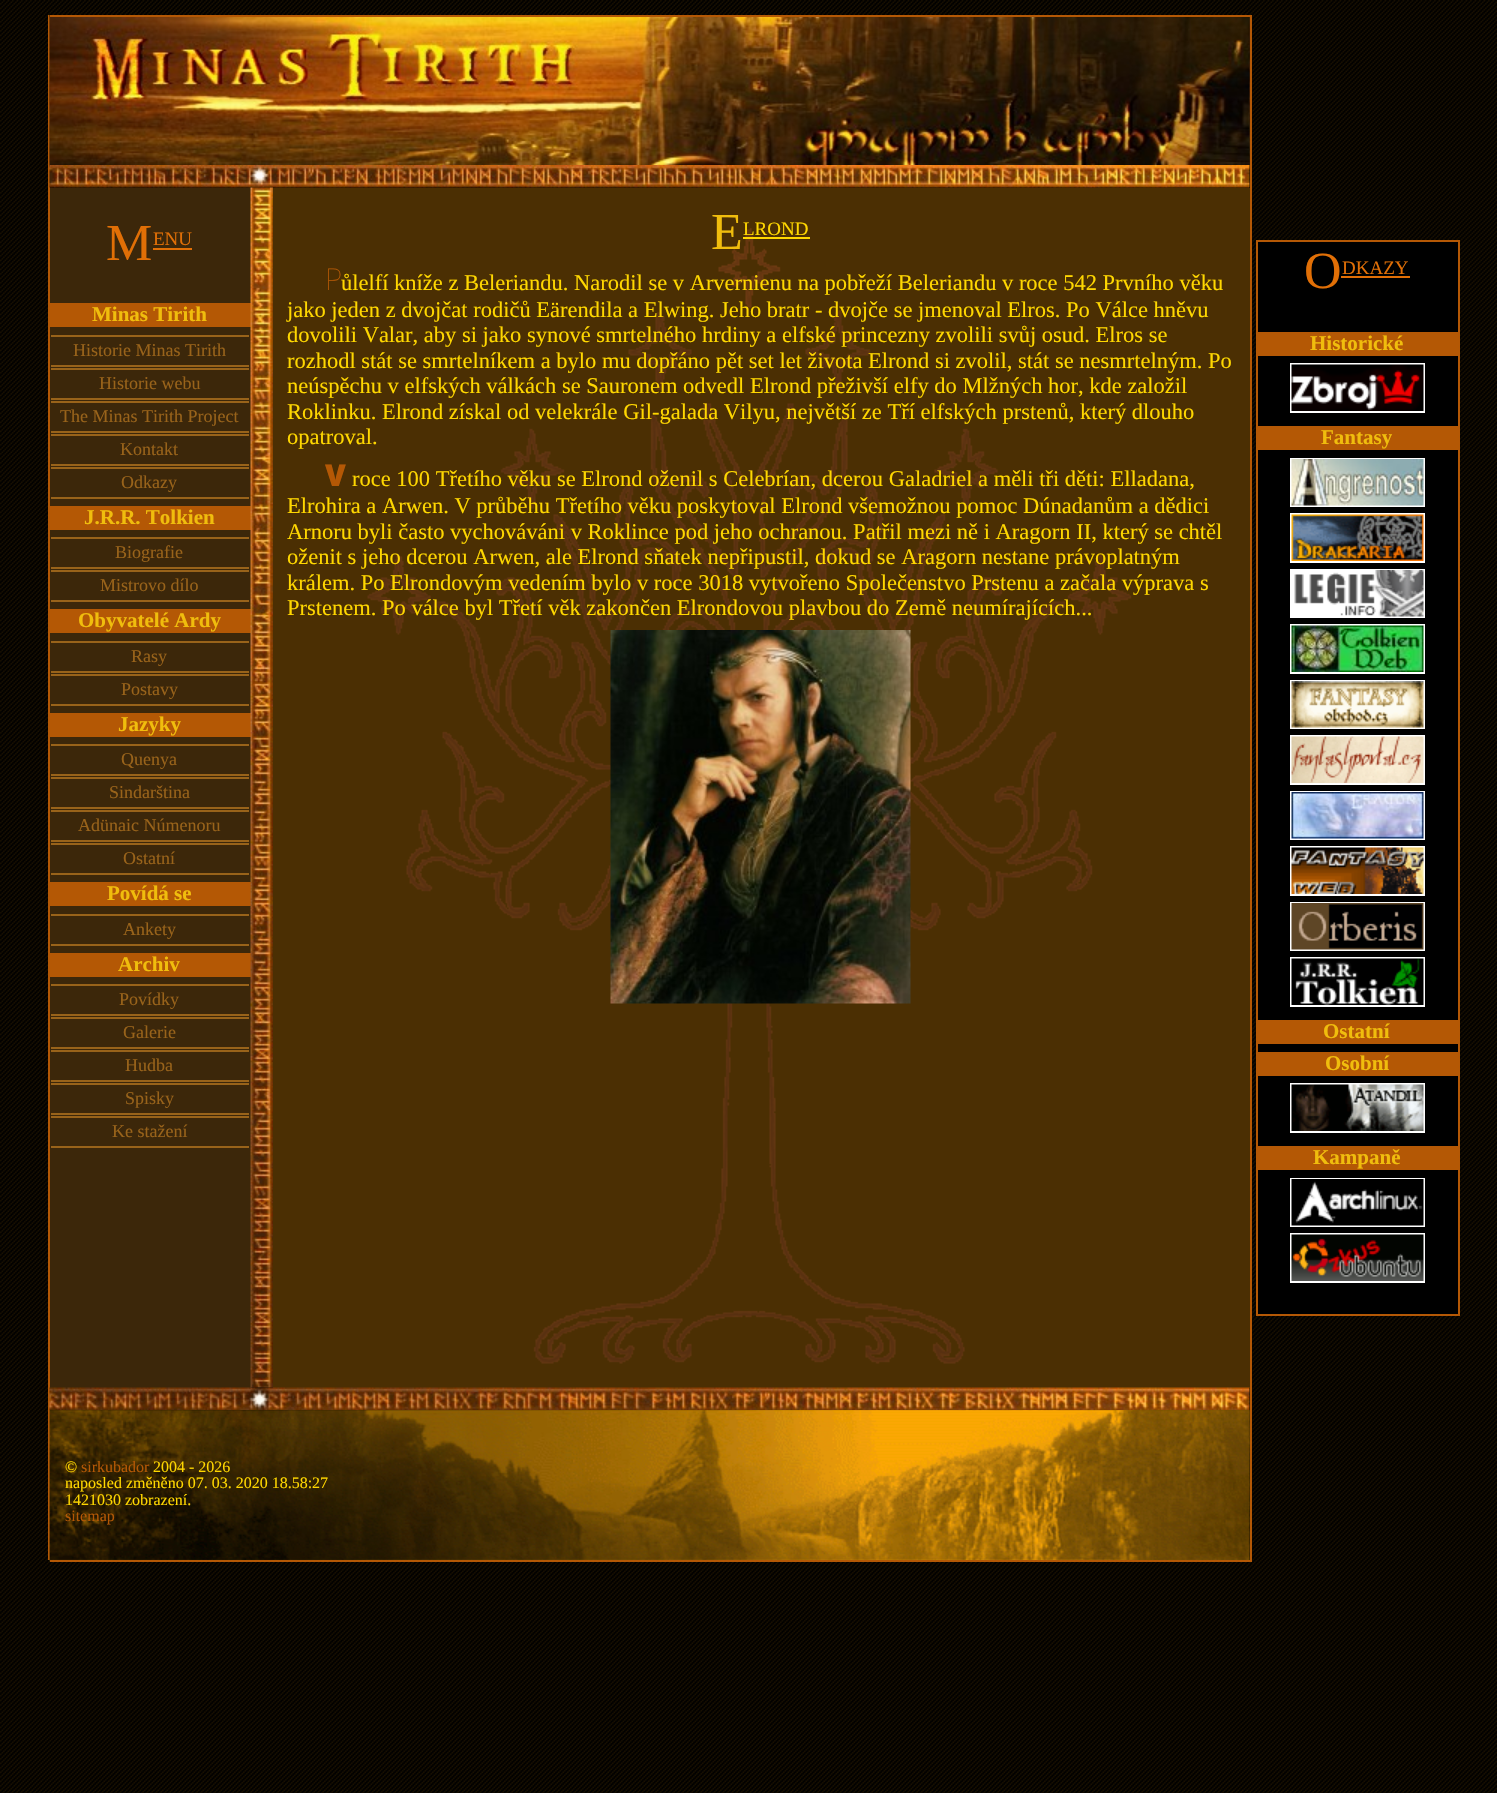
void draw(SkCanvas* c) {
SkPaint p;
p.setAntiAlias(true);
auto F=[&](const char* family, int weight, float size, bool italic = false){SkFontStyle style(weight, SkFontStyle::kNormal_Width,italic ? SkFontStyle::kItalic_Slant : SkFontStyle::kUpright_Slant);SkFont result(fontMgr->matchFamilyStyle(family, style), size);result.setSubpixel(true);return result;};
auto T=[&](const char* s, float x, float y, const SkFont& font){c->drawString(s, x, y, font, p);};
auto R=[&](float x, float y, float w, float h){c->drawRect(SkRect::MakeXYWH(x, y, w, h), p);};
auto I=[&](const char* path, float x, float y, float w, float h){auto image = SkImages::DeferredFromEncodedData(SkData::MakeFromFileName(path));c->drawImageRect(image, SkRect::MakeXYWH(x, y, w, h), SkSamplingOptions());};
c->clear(0xffffffff);
I("1.png",0,0,1497,1793);
p.setColor(0xffb45805);
R(48,15,2,1545);
I("2.png",49,15,1201,152);
R(50,15,1201,2);
R(1250,15,2,1547);
I("3.png",49,165,1201,23);
p.setColor(0xff3c270a);
R(50,188,201,1200);
auto f1 = F("Liberation Serif",400,52);
p.setColor(0xffe16f06);
T("M",106,260,f1);
auto f2 = F("Liberation Serif",400,19);
T("ENU",153,245,f2);
R(153,248,39,2);
p.setColor(0xffb45805);
R(50,303,201,24);
auto f3 = F("Liberation Serif",700,21);
p.setColor(0xfff0bd0d);
T("Minas Tirith",92,321,f3);
p.setColor(0xff99631a);
R(51,335,198,2);
R(51,365,198,2);
auto f4 = F("Liberation Serif",400,18);
T("Historie Minas Tirith",73,356,f4);
R(51,368,198,2);
R(51,398,198,2);
T("Historie webu",99,389,f4);
R(51,401,198,2);
R(51,431,198,2);
T("The Minas Tirith Project",60,422,f4);
R(51,434,198,2);
R(51,464,198,2);
T("Kontakt",120,455,f4);
R(51,467,198,2);
R(51,497,198,2);
T("Odkazy",121,488,f4);
p.setColor(0xffb45805);
R(50,506,201,24);
p.setColor(0xfff0bd0d);
T("J.R.R. Tolkien",84,524,f3);
p.setColor(0xff99631a);
R(51,537,198,2);
R(51,567,198,2);
T("Biografie",115,558,f4);
R(51,570,198,2);
R(51,600,198,2);
T("Mistrovo dílo",100,591,f4);
p.setColor(0xffb45805);
R(50,609,201,24);
p.setColor(0xfff0bd0d);
T("Obyvatelé Ardy",78,627,f3);
p.setColor(0xff99631a);
R(51,641,198,2);
R(51,671,198,2);
T("Rasy",131,662,f4);
R(51,674,198,2);
R(51,704,198,2);
T("Postavy",121,695,f4);
p.setColor(0xffb45805);
R(50,713,201,24);
p.setColor(0xfff0bd0d);
T("Jazyky",118,731,f3);
p.setColor(0xff99631a);
R(51,744,198,2);
R(51,774,198,2);
T("Quenya",121,765,f4);
R(51,777,198,2);
R(51,807,198,2);
T("Sindarština",109,798,f4);
R(51,810,198,2);
R(51,840,198,2);
T("Adünaic Númenoru",78,831,f4);
R(51,843,198,2);
R(51,873,198,2);
T("Ostatní",123,864,f4);
p.setColor(0xffb45805);
R(50,882,201,24);
p.setColor(0xfff0bd0d);
T("Povídá se",107,900,f3);
p.setColor(0xff99631a);
R(51,914,198,2);
R(51,944,198,2);
T("Ankety",123,935,f4);
p.setColor(0xffb45805);
R(50,953,201,24);
p.setColor(0xfff0bd0d);
T("Archiv",118,971,f3);
p.setColor(0xff99631a);
R(51,984,198,2);
R(51,1014,198,2);
T("Povídky",119,1005,f4);
R(51,1017,198,2);
R(51,1047,198,2);
T("Galerie",123,1038,f4);
R(51,1050,198,2);
R(51,1080,198,2);
T("Hudba",125,1071,f4);
R(51,1083,198,2);
R(51,1113,198,2);
T("Spisky",125,1104,f4);
R(51,1116,198,2);
R(51,1146,198,2);
T("Ke stažení",112,1137,f4);
I("4.png",250,187,23,1201);
p.setColor(0xff4b2f03);
R(273,188,977,1200);
I("5.png",367,228,765,1136);
p.setColor(0xfff0bd0d);
T("E",711,249,f1);
p.setColor(0xffffd700);
T("LROND",743,235,f2);
R(743,237,67,2);
auto f5 = F("Noto Sans",100,30);
p.setColor(0xffb45805);
T("P",325,290,f5);
auto f6 = F("Liberation Serif",400,22.5);
p.setColor(0xffffd700);
T("ůlelfí kníže z Beleriandu. Narodil se v Arvernienu na pobřeží Beleriandu v roce 542 Prvního věku",341,290,f6);
T("jako jeden z dvojčat rodičů Eärendila a Elwing. Jeho bratr - dvojče se jmenoval Elros. Po Válce hněvu",287,317,f6);
T("dovolili Valar, aby si jako synové smrtelného hrdiny a elfské princezny zvolili svůj osud. Elros se",287,342,f6);
T("rozhodl stát se smrtelníkem a bylo mu dopřáno pět set let života Elrond si zvolil, stát se nesmrtelným. Po",287,368,f6);
T("neúspěchu v elfských válkách se Sauronem odvedl Elrond přeživší elfy do Mlžných hor, kde založil",287,393,f6);
T("Roklinku. Elrond získal od velekrále Gil-galada Vilyu, největší ze Tří elfských prstenů, který dlouho",287,419,f6);
T("opatroval.",287,444,f6);
auto f7 = F("Noto Sans",900,30);
p.setColor(0xffb45805);
T("V",325,486,f7);
p.setColor(0xffffd700);
T("roce 100 Třetího věku se Elrond oženil s Celebrían, dcerou Galadriel a měli tři děti: Elladana,",352,486,f6);
T("Elrohira a Arwen. V průběhu Třetího věku poskytoval Elrond všemožnou pomoc Dúnadanům a dědici",287,513,f6);
T("Arnoru byli často vychováváni v Roklince pod jeho ochranou. Patřil mezi ně i Aragorn II, který se chtěl",287,539,f6);
T("oženit s jeho dcerou Arwen, ale Elrond sňatek nepřipustil, dokud se Aragorn nestane právoplatným",287,564,f6);
T("králem. Po Elrondovým vedením bylo v roce 3018 vytvořeno Společenstvo Prstenu a začala výprava s",287,590,f6);
T("Prstenem. Po válce byl Třetí věk zakončen Elrondovou plavbou do Země neumírajících...",287,615,f6);
I("6.png",610,630,301,374);
p.setColor(0xff000000);
c->drawRect(SkRect::MakeXYWH(1257,241,202,1074),p);
p.setStroke(true);
p.setStrokeWidth(2);
p.setColor(0xffb45805);
c->drawRect(SkRect::MakeXYWH(1257,241,202,1074),p);
p.setStroke(false);
p.setColor(0xffe16f06);
T("O",1304,288,f1);
T("DKAZY",1342,274,f2);
R(1341,276,69,2);
p.setColor(0xffb45805);
R(1258,332,200,24);
p.setColor(0xfff0bd0d);
T("Historické",1310,350,f3);
p.setStroke(true);
p.setColor(0xffffffff);
c->drawRect(SkRect::MakeXYWH(1291,364,133,48),p);
I("7.png",1291,364,133,47);
p.setStroke(false);
p.setColor(0xffb45805);
R(1258,426,200,24);
p.setColor(0xfff0bd0d);
T("Fantasy",1321,444,f3);
p.setStroke(true);
p.setColor(0xffffffff);
c->drawRect(SkRect::MakeXYWH(1291,459,133,47),p);
I("8.png",1291,459,133,47);
c->drawRect(SkRect::MakeXYWH(1291,514,133,48),p);
I("9.png",1291,514,133,47);
c->drawRect(SkRect::MakeXYWH(1291,570,133,47),p);
I("10.png",1292,570,132,47);
c->drawRect(SkRect::MakeXYWH(1291,625,133,48),p);
I("11.png",1291,625,133,47);
c->drawRect(SkRect::MakeXYWH(1291,681,133,47),p);
I("12.png",1291,681,133,47);
c->drawRect(SkRect::MakeXYWH(1291,736,133,48),p);
I("13.png",1291,736,133,47);
c->drawRect(SkRect::MakeXYWH(1291,792,133,47),p);
I("14.png",1291,792,133,47);
c->drawRect(SkRect::MakeXYWH(1291,847,133,48),p);
I("15.png",1291,847,133,47);
c->drawRect(SkRect::MakeXYWH(1291,903,133,47),p);
I("16.png",1291,903,133,47);
c->drawRect(SkRect::MakeXYWH(1291,958,133,48),p);
I("17.png",1291,958,133,47);
p.setStroke(false);
p.setColor(0xffb45805);
R(1258,1020,200,24);
p.setColor(0xfff0bd0d);
T("Ostatní",1323,1038,f3);
p.setColor(0xffb45805);
R(1258,1052,200,24);
p.setColor(0xfff0bd0d);
T("Osobní",1325,1070,f3);
p.setStroke(true);
p.setColor(0xffffffff);
c->drawRect(SkRect::MakeXYWH(1291,1084,133,48),p);
I("18.png",1291,1084,133,47);
p.setStroke(false);
p.setColor(0xffb45805);
R(1258,1146,200,24);
p.setColor(0xfff0bd0d);
T("Kampaně",1313,1164,f3);
p.setStroke(true);
p.setColor(0xffffffff);
c->drawRect(SkRect::MakeXYWH(1291,1179,133,47),p);
I("19.png",1291,1179,133,47);
c->drawRect(SkRect::MakeXYWH(1291,1234,133,48),p);
I("20.png",1291,1234,133,47);
I("21.png",49,1387,1201,23);
I("22.png",49,1410,1201,152);
p.setStroke(false);
p.setColor(0xffb45805);
R(50,1560,1201,2);
auto f8 = F("Liberation Serif",400,16);
p.setColor(0xffffd700);
T("©",65,1472,f8);
p.setColor(0xffb45805);
T("sirkubador",81,1472,f8);
p.setColor(0xffffd700);
T("2004 - 2026",153,1472,f8);
T("naposled změněno 07. 03. 2020 18.58:27",65,1488,f8);
T("1421030 zobrazení.",65,1505,f8);
p.setColor(0xffb45805);
T("sitemap",65,1521,f8);
}
